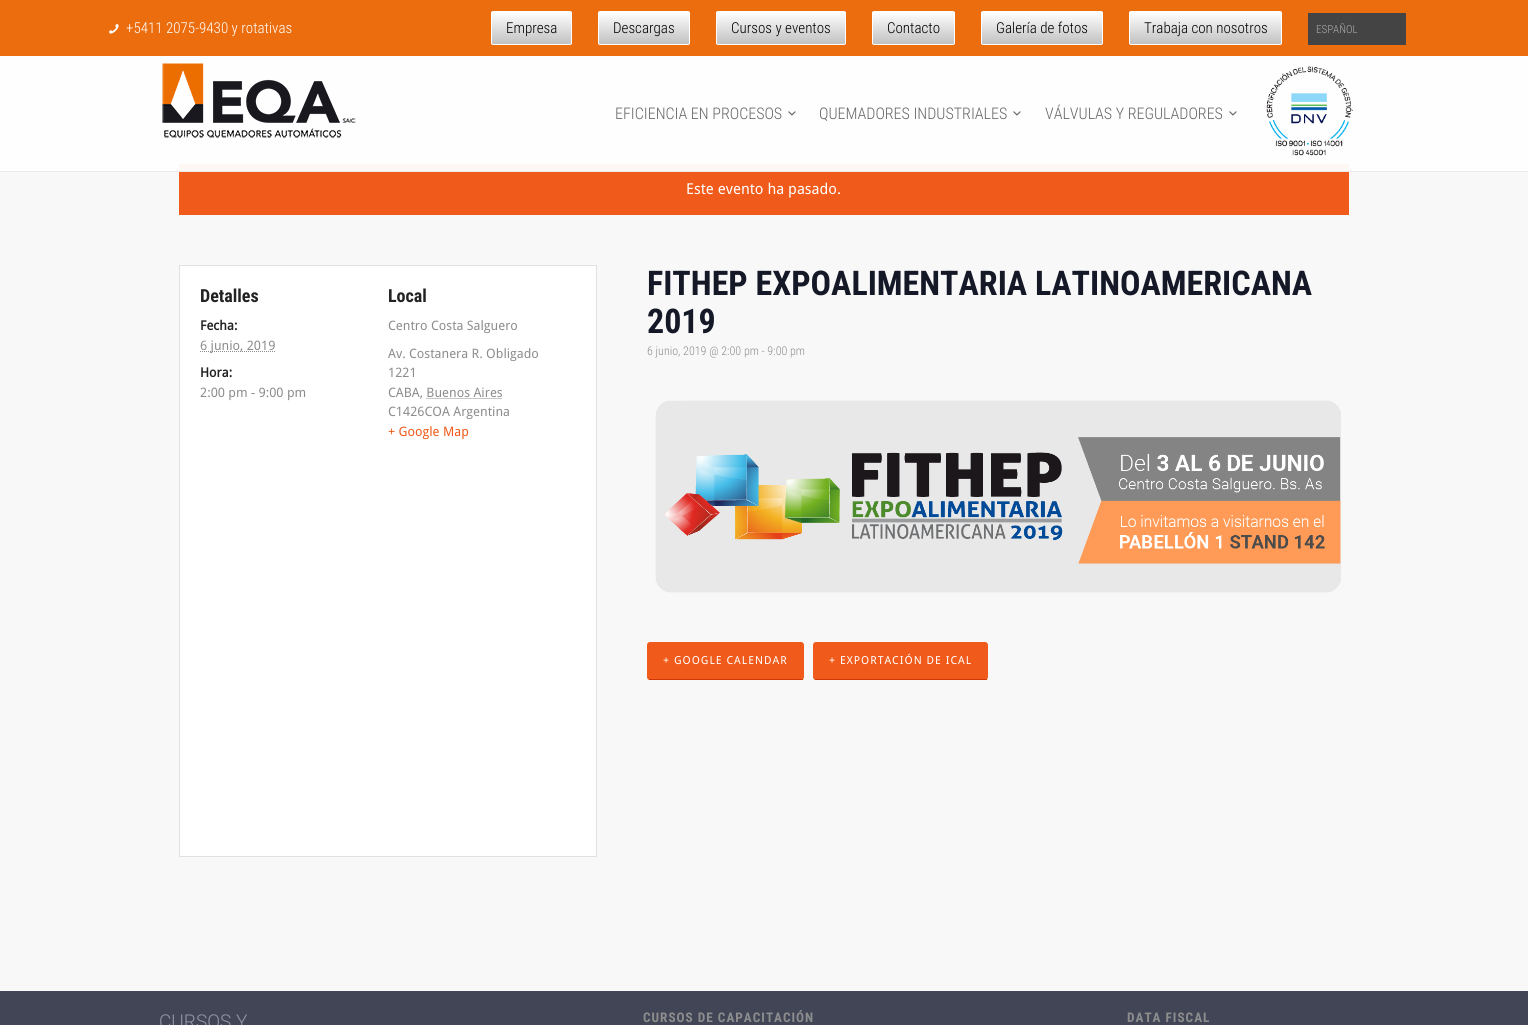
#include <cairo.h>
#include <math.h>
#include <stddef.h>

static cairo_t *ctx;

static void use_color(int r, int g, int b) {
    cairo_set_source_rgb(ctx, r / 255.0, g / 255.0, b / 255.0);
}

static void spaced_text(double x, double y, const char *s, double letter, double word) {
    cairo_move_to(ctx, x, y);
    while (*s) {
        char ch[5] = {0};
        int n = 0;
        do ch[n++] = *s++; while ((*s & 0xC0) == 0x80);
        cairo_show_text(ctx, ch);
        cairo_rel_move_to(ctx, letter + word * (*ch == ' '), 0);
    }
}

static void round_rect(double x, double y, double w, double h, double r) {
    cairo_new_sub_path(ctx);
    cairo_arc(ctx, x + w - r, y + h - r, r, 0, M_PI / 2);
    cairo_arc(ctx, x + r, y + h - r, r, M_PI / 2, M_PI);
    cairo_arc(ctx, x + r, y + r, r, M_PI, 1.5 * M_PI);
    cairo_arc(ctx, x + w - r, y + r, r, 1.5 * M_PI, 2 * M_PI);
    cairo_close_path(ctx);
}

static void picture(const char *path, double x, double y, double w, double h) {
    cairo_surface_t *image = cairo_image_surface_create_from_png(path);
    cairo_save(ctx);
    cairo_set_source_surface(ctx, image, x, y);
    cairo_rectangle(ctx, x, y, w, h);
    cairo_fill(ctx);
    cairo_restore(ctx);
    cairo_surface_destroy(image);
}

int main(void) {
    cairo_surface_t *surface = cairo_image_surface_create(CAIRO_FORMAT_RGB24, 1528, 1025);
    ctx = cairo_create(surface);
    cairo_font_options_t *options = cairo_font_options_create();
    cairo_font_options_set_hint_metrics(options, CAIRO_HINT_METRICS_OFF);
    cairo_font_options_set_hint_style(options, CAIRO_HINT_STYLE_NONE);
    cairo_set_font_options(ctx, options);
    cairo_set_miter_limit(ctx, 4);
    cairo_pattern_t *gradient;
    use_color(254, 254, 254);
    cairo_paint(ctx);
    use_color(235, 109, 13);
    cairo_rectangle(ctx, 0, 0, 1528, 56);
    cairo_fill(ctx);
    picture("img1.png", 109, 24, 10, 10);
    cairo_select_font_face(ctx, "Roboto Condensed Light", CAIRO_FONT_SLANT_NORMAL, CAIRO_FONT_WEIGHT_NORMAL);
    cairo_set_font_size(ctx, 15);
    use_color(255, 255, 255);
    cairo_move_to(ctx, 126, 33);
    cairo_show_text(ctx, "+5411 2075-9430 y rotativas");
    cairo_save(ctx);
    round_rect(491, 11, 81, 34, 2);
    cairo_clip(ctx);
    gradient = cairo_pattern_create_linear(532, 44, 532, 12);
    cairo_pattern_add_color_stop_rgba(gradient, 0, 0.757, 0.757, 0.757, 1);
    cairo_pattern_add_color_stop_rgba(gradient, 1, 1, 1, 1, 1);
    cairo_set_source(ctx, gradient);
    cairo_pattern_destroy(gradient);
    cairo_rectangle(ctx, 491, 12, 81, 32);
    cairo_fill(ctx);
    cairo_restore(ctx);
    round_rect(491.5, 11.5, 80, 33, 1.5);
    cairo_set_line_width(ctx, 1);
    cairo_stroke(ctx);
    use_color(0, 0, 0);
    cairo_move_to(ctx, 506, 33);
    cairo_show_text(ctx, "Empresa");
    cairo_save(ctx);
    round_rect(598, 11, 92, 34, 2);
    cairo_clip(ctx);
    gradient = cairo_pattern_create_linear(644, 44, 644, 12);
    cairo_pattern_add_color_stop_rgba(gradient, 0, 0.757, 0.757, 0.757, 1);
    cairo_pattern_add_color_stop_rgba(gradient, 1, 1, 1, 1, 1);
    cairo_set_source(ctx, gradient);
    cairo_pattern_destroy(gradient);
    cairo_rectangle(ctx, 598, 12, 92, 32);
    cairo_fill(ctx);
    cairo_restore(ctx);
    round_rect(598.5, 11.5, 91, 33, 1.5);
    use_color(255, 255, 255);
    cairo_stroke(ctx);
    use_color(0, 0, 0);
    cairo_move_to(ctx, 613, 33);
    cairo_show_text(ctx, "Descargas");
    cairo_save(ctx);
    round_rect(716, 11, 130, 34, 2);
    cairo_clip(ctx);
    gradient = cairo_pattern_create_linear(781, 44, 781, 12);
    cairo_pattern_add_color_stop_rgba(gradient, 0, 0.757, 0.757, 0.757, 1);
    cairo_pattern_add_color_stop_rgba(gradient, 1, 1, 1, 1, 1);
    cairo_set_source(ctx, gradient);
    cairo_pattern_destroy(gradient);
    cairo_rectangle(ctx, 716, 12, 130, 32);
    cairo_fill(ctx);
    cairo_restore(ctx);
    round_rect(716.5, 11.5, 129, 33, 1.5);
    use_color(255, 255, 255);
    cairo_stroke(ctx);
    use_color(0, 0, 0);
    cairo_move_to(ctx, 731, 33);
    cairo_show_text(ctx, "Cursos y eventos");
    cairo_save(ctx);
    round_rect(872, 11, 83, 34, 2);
    cairo_clip(ctx);
    gradient = cairo_pattern_create_linear(914, 44, 914, 12);
    cairo_pattern_add_color_stop_rgba(gradient, 0, 0.757, 0.757, 0.757, 1);
    cairo_pattern_add_color_stop_rgba(gradient, 1, 1, 1, 1, 1);
    cairo_set_source(ctx, gradient);
    cairo_pattern_destroy(gradient);
    cairo_rectangle(ctx, 872, 12, 83, 32);
    cairo_fill(ctx);
    cairo_restore(ctx);
    round_rect(872.5, 11.5, 82, 33, 1.5);
    use_color(255, 255, 255);
    cairo_stroke(ctx);
    use_color(0, 0, 0);
    cairo_move_to(ctx, 887, 33);
    cairo_show_text(ctx, "Contacto");
    cairo_save(ctx);
    round_rect(981, 11, 122, 34, 2);
    cairo_clip(ctx);
    gradient = cairo_pattern_create_linear(1042, 44, 1042, 12);
    cairo_pattern_add_color_stop_rgba(gradient, 0, 0.757, 0.757, 0.757, 1);
    cairo_pattern_add_color_stop_rgba(gradient, 1, 1, 1, 1, 1);
    cairo_set_source(ctx, gradient);
    cairo_pattern_destroy(gradient);
    cairo_rectangle(ctx, 981, 12, 122, 32);
    cairo_fill(ctx);
    cairo_restore(ctx);
    round_rect(981.5, 11.5, 121, 33, 1.5);
    use_color(255, 255, 255);
    cairo_stroke(ctx);
    use_color(0, 0, 0);
    cairo_move_to(ctx, 996, 33);
    cairo_show_text(ctx, "Galería de fotos");
    cairo_save(ctx);
    round_rect(1129, 11, 153, 34, 2);
    cairo_clip(ctx);
    gradient = cairo_pattern_create_linear(1206, 44, 1206, 12);
    cairo_pattern_add_color_stop_rgba(gradient, 0, 0.757, 0.757, 0.757, 1);
    cairo_pattern_add_color_stop_rgba(gradient, 1, 1, 1, 1, 1);
    cairo_set_source(ctx, gradient);
    cairo_pattern_destroy(gradient);
    cairo_rectangle(ctx, 1129, 12, 153, 32);
    cairo_fill(ctx);
    cairo_restore(ctx);
    round_rect(1129.5, 11.5, 152, 33, 1.5);
    use_color(255, 255, 255);
    cairo_stroke(ctx);
    use_color(0, 0, 0);
    cairo_move_to(ctx, 1144, 33);
    cairo_show_text(ctx, "Trabaja con nosotros");
    use_color(68, 68, 68);
    cairo_rectangle(ctx, 1308, 13, 98, 32);
    cairo_fill(ctx);
    cairo_set_font_size(ctx, 11);
    use_color(173, 173, 173);
    cairo_move_to(ctx, 1316, 33);
    cairo_show_text(ctx, "ESPAÑOL");
    use_color(234, 234, 234);
    cairo_rectangle(ctx, 0, 171, 1528, 1);
    cairo_fill(ctx);
    picture("img2.png", 162, 63, 194, 75);
    cairo_set_font_size(ctx, 16);
    use_color(102, 102, 102);
    cairo_move_to(ctx, 615, 119);
    cairo_show_text(ctx, "EFICIENCIA EN PROCESOS");
    picture("img3.png", 788, 111, 8, 5);
    cairo_move_to(ctx, 819, 119);
    cairo_show_text(ctx, "QUEMADORES INDUSTRIALES");
    picture("img3.png", 1013, 111, 8, 5);
    cairo_move_to(ctx, 1045, 119);
    cairo_show_text(ctx, "VÁLVULAS Y REGULADORES");
    picture("img3.png", 1229, 111, 8, 5);
    picture("img4.png", 1266, 66, 87, 90);
    use_color(248, 248, 248);
    cairo_rectangle(ctx, 0, 172, 1528, 819);
    cairo_fill(ctx);
    use_color(240, 90, 26);
    cairo_rectangle(ctx, 179, 172, 1170, 43);
    cairo_fill(ctx);
    use_color(254, 247, 244);
    cairo_rectangle(ctx, 179, 164, 1170, 7);
    cairo_fill(ctx);
    cairo_select_font_face(ctx, "Droid Sans", CAIRO_FONT_SLANT_NORMAL, CAIRO_FONT_WEIGHT_NORMAL);
    cairo_set_font_size(ctx, 15);
    use_color(255, 255, 255);
    cairo_move_to(ctx, 686, 194);
    cairo_show_text(ctx, "Este evento ha pasado.");
    cairo_rectangle(ctx, 179.5, 265.5, 417, 591);
    cairo_fill_preserve(ctx);
    use_color(225, 225, 225);
    cairo_stroke(ctx);
    cairo_select_font_face(ctx, "Roboto Condensed", CAIRO_FONT_SLANT_NORMAL, CAIRO_FONT_WEIGHT_BOLD);
    cairo_set_font_size(ctx, 18);
    use_color(34, 34, 34);
    cairo_move_to(ctx, 200, 302);
    cairo_show_text(ctx, "Detalles");
    cairo_select_font_face(ctx, "Droid Sans", CAIRO_FONT_SLANT_NORMAL, CAIRO_FONT_WEIGHT_BOLD);
    cairo_set_font_size(ctx, 13);
    cairo_move_to(ctx, 200, 330);
    cairo_show_text(ctx, "Fecha:");
    cairo_new_path(ctx);
    cairo_move_to(ctx, 200, 351.5);
    cairo_line_to(ctx, 275.5, 351.5);
    use_color(141, 141, 141);
    cairo_set_dash(ctx, (double[]){1, 1}, 2, 0);
    cairo_stroke(ctx);
    cairo_select_font_face(ctx, "Droid Sans", CAIRO_FONT_SLANT_NORMAL, CAIRO_FONT_WEIGHT_NORMAL);
    cairo_move_to(ctx, 200, 350);
    cairo_show_text(ctx, "6 junio, 2019");
    cairo_select_font_face(ctx, "Droid Sans", CAIRO_FONT_SLANT_NORMAL, CAIRO_FONT_WEIGHT_BOLD);
    use_color(34, 34, 34);
    cairo_move_to(ctx, 200, 377);
    cairo_show_text(ctx, "Hora:");
    cairo_select_font_face(ctx, "Droid Sans", CAIRO_FONT_SLANT_NORMAL, CAIRO_FONT_WEIGHT_NORMAL);
    use_color(141, 141, 141);
    cairo_move_to(ctx, 200, 397);
    cairo_show_text(ctx, "2:00 pm - 9:00 pm");
    cairo_select_font_face(ctx, "Roboto Condensed", CAIRO_FONT_SLANT_NORMAL, CAIRO_FONT_WEIGHT_BOLD);
    cairo_set_font_size(ctx, 18);
    use_color(34, 34, 34);
    cairo_move_to(ctx, 388, 302);
    cairo_show_text(ctx, "Local");
    cairo_select_font_face(ctx, "Droid Sans", CAIRO_FONT_SLANT_NORMAL, CAIRO_FONT_WEIGHT_NORMAL);
    cairo_set_font_size(ctx, 13);
    use_color(141, 141, 141);
    cairo_move_to(ctx, 388, 330);
    cairo_show_text(ctx, "Centro Costa Salguero");
    cairo_move_to(ctx, 388, 358);
    cairo_show_text(ctx, "Av. Costanera R. Obligado");
    cairo_move_to(ctx, 388, 377);
    cairo_show_text(ctx, "1221");
    cairo_move_to(ctx, 388, 397);
    cairo_show_text(ctx, "CABA, Buenos Aires");
    cairo_new_path(ctx);
    cairo_move_to(ctx, 426.5, 398.5);
    cairo_line_to(ctx, 502.5, 398.5);
    cairo_stroke(ctx);
    cairo_move_to(ctx, 388, 416);
    cairo_show_text(ctx, "C1426COA Argentina");
    use_color(240, 90, 26);
    cairo_move_to(ctx, 388, 436);
    cairo_show_text(ctx, "+ Google Map");
    cairo_select_font_face(ctx, "Roboto Condensed", CAIRO_FONT_SLANT_NORMAL, CAIRO_FONT_WEIGHT_BOLD);
    cairo_set_font_size(ctx, 34);
    use_color(20, 24, 39);
    cairo_move_to(ctx, 647, 295);
    cairo_show_text(ctx, "FITHEP EXPOALIMENTARIA LATINOAMERICANA");
    cairo_move_to(ctx, 647, 333);
    cairo_show_text(ctx, "2019");
    cairo_select_font_face(ctx, "Roboto Condensed Light", CAIRO_FONT_SLANT_NORMAL, CAIRO_FONT_WEIGHT_NORMAL);
    cairo_set_font_size(ctx, 12);
    use_color(141, 141, 141);
    cairo_move_to(ctx, 647, 355);
    cairo_show_text(ctx, "6 junio, 2019 @ 2:00 pm - 9:00 pm");
    picture("img5.png", 655, 400, 686, 193);
    use_color(240, 90, 26);
    round_rect(647, 642, 157, 38, 3);
    cairo_fill(ctx);
    use_color(208, 56, 8);
    cairo_rectangle(ctx, 649, 679, 154, 1);
    cairo_fill(ctx);
    cairo_select_font_face(ctx, "Droid Sans", CAIRO_FONT_SLANT_NORMAL, CAIRO_FONT_WEIGHT_NORMAL);
    cairo_set_font_size(ctx, 11);
    use_color(255, 255, 255);
    spaced_text(663, 664, "+ GOOGLE CALENDAR", 1, 0);
    use_color(240, 90, 26);
    round_rect(813, 642, 175, 38, 3);
    cairo_fill(ctx);
    use_color(208, 56, 8);
    cairo_rectangle(ctx, 815, 679, 172, 1);
    cairo_fill(ctx);
    use_color(255, 255, 255);
    spaced_text(829, 664, "+ EXPORTACIÓN DE ICAL", 1, 0);
    use_color(65, 69, 86);
    cairo_rectangle(ctx, 0, 991, 1528, 34);
    cairo_fill(ctx);
    cairo_select_font_face(ctx, "Roboto Light", CAIRO_FONT_SLANT_NORMAL, CAIRO_FONT_WEIGHT_NORMAL);
    cairo_set_font_size(ctx, 19);
    use_color(147, 149, 164);
    cairo_move_to(ctx, 159, 1028);
    cairo_show_text(ctx, "CURSOS Y");
    cairo_select_font_face(ctx, "Roboto Condensed", CAIRO_FONT_SLANT_NORMAL, CAIRO_FONT_WEIGHT_BOLD);
    cairo_set_font_size(ctx, 13.25);
    use_color(141, 141, 141);
    spaced_text(643, 1022, "CURSOS DE CAPACITACIÓN", 1, 0);
    spaced_text(1127, 1022, "DATA FISCAL", 1, 0);
    cairo_surface_write_to_png(surface, "result.png");
    cairo_font_options_destroy(options);
    cairo_destroy(ctx);
    cairo_surface_destroy(surface);
    return 0;
}
